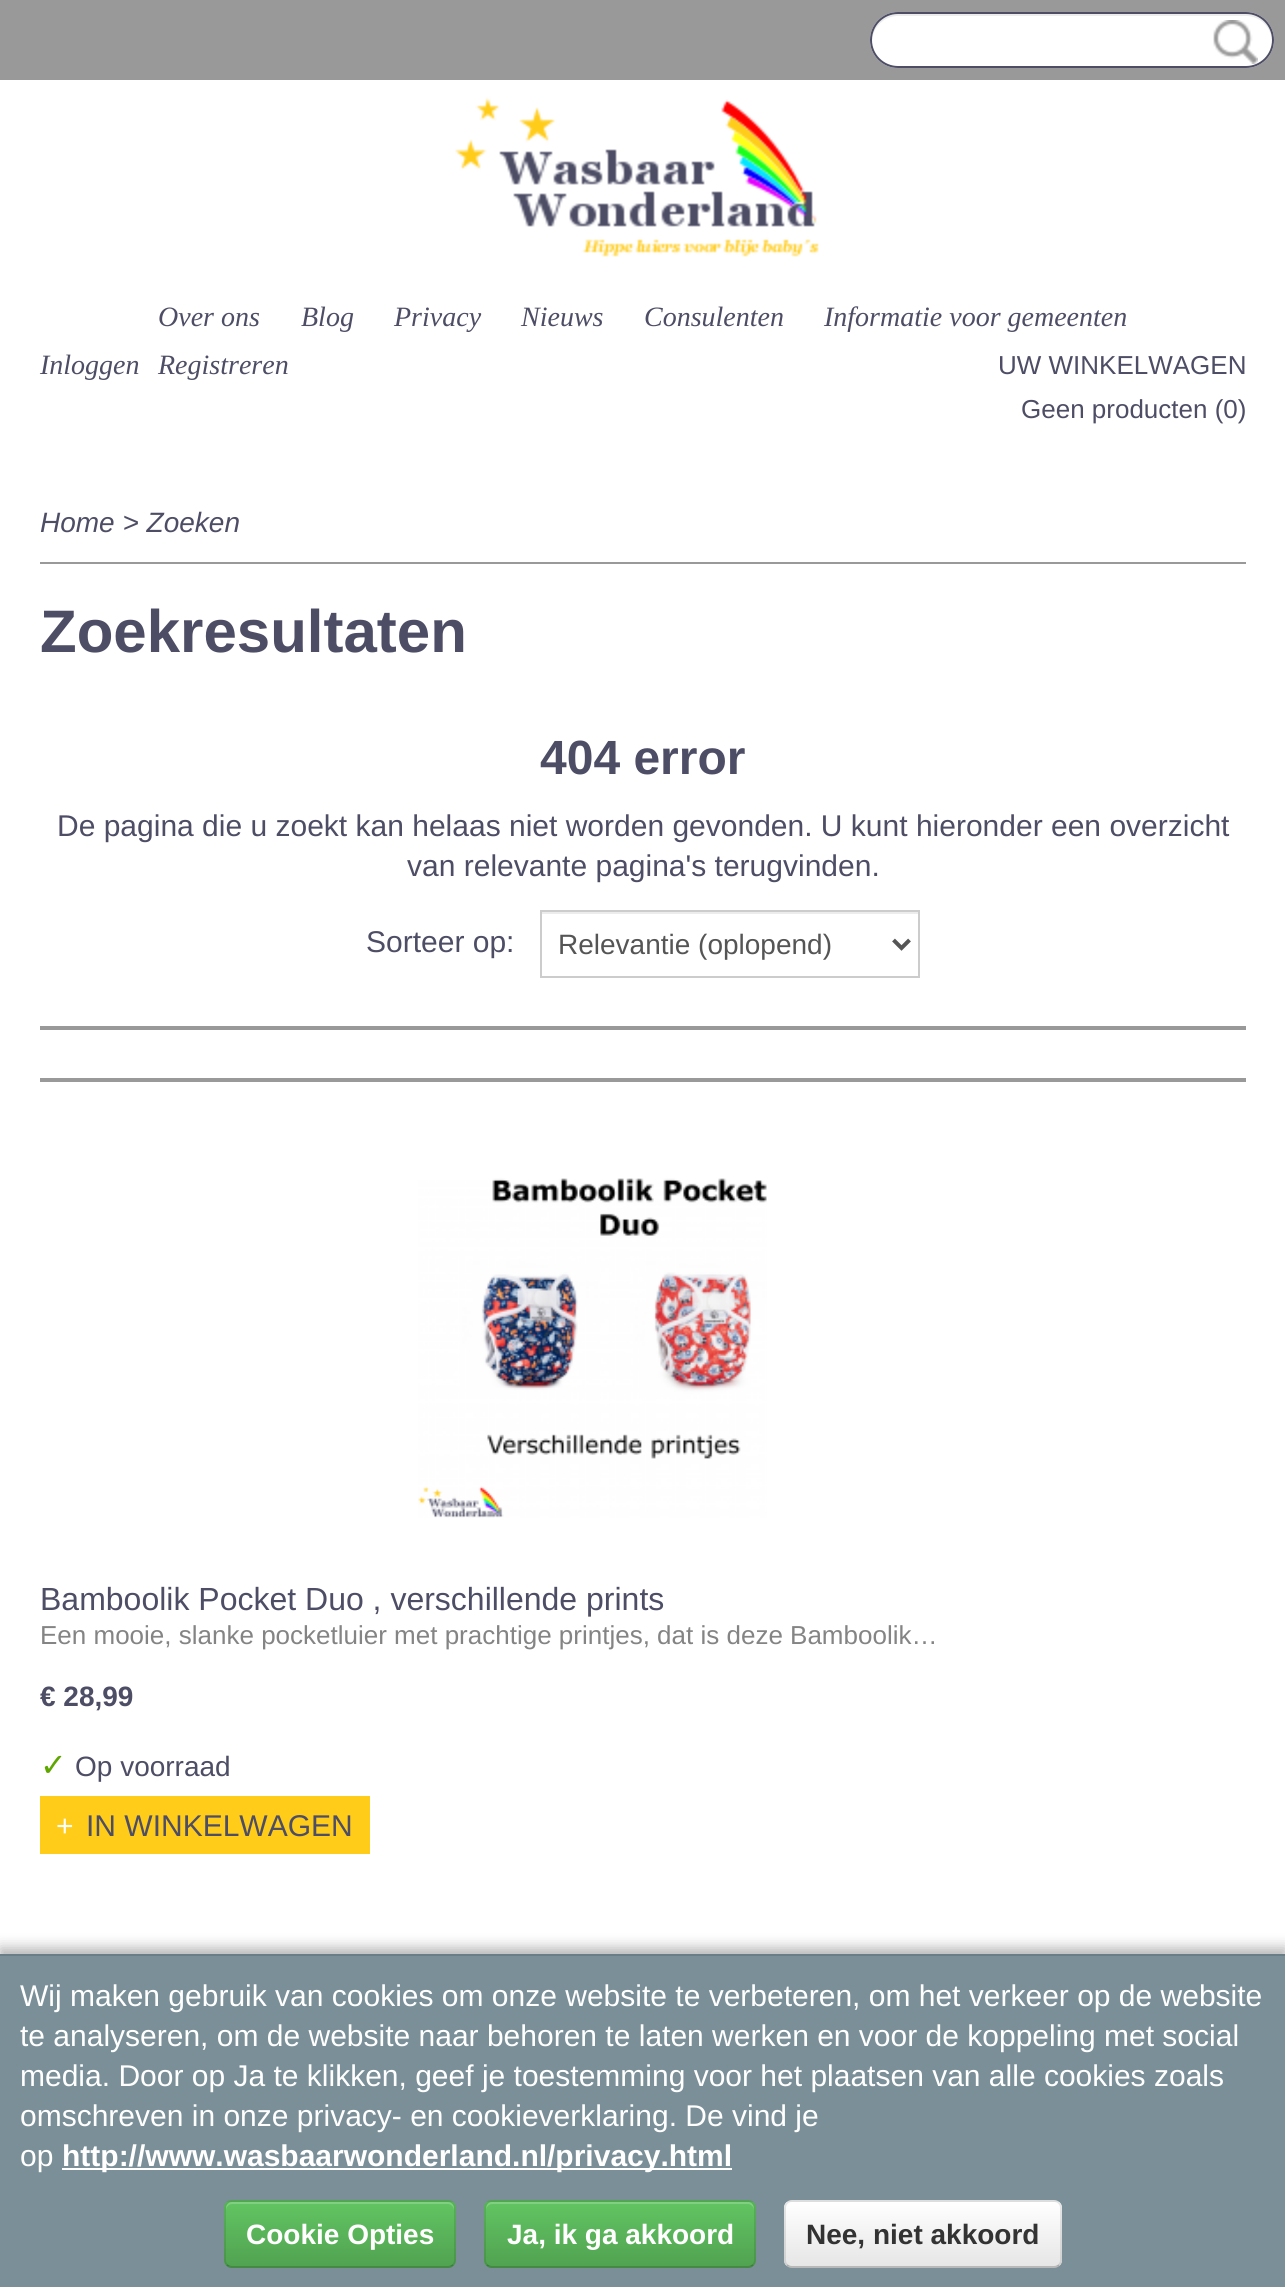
#include <cairo.h>
#include <math.h>
#include <stddef.h>

static cairo_t *ctx;

static void use_color(int r, int g, int b) {
    cairo_set_source_rgb(ctx, r / 255.0, g / 255.0, b / 255.0);
}

static void round_rect(double x, double y, double w, double h, double r) {
    cairo_new_sub_path(ctx);
    cairo_arc(ctx, x + w - r, y + h - r, r, 0, M_PI / 2);
    cairo_arc(ctx, x + r, y + h - r, r, M_PI / 2, M_PI);
    cairo_arc(ctx, x + r, y + r, r, M_PI, 1.5 * M_PI);
    cairo_arc(ctx, x + w - r, y + r, r, 1.5 * M_PI, 2 * M_PI);
    cairo_close_path(ctx);
}

static void shadow(double x, double y, double w, double h, double r, double blur, double alpha) {
    cairo_push_group_with_content(ctx, CAIRO_CONTENT_ALPHA);
    cairo_set_operator(ctx, CAIRO_OPERATOR_SOURCE);
    for (int i = 15; i >= -15 && fmin(w, h) + blur * i / 3 > 0; i -= 2) {
        double e = blur * i / 6;
        cairo_set_source_rgba(ctx, 0, 0, 0, alpha * erfc((i - 1) / 8.5) / 2);
        round_rect(x - e, y - e, w + 2 * e, h + 2 * e, fmax(0, fmin(r + e + blur * .6, fmin(w, h) / 2 + e)));
        cairo_fill(ctx);
    }
    cairo_pattern_t *soft = cairo_pop_group(ctx);
    cairo_mask(ctx, soft);
    cairo_pattern_destroy(soft);
}

static void picture(const char *path, double x, double y, double w, double h) {
    cairo_surface_t *image = cairo_image_surface_create_from_png(path);
    cairo_save(ctx);
    cairo_set_source_surface(ctx, image, x, y);
    cairo_rectangle(ctx, x, y, w, h);
    cairo_fill(ctx);
    cairo_restore(ctx);
    cairo_surface_destroy(image);
}

int main(void) {
    cairo_surface_t *surface = cairo_image_surface_create(CAIRO_FORMAT_RGB24, 1285, 2287);
    ctx = cairo_create(surface);
    cairo_font_options_t *options = cairo_font_options_create();
    cairo_font_options_set_hint_metrics(options, CAIRO_HINT_METRICS_OFF);
    cairo_font_options_set_hint_style(options, CAIRO_HINT_STYLE_NONE);
    cairo_set_font_options(ctx, options);
    cairo_set_miter_limit(ctx, 4);
    cairo_pattern_t *gradient;
    use_color(255, 255, 255);
    cairo_paint(ctx);
    use_color(153, 153, 153);
    cairo_rectangle(ctx, 0, 0, 1285, 80);
    cairo_fill(ctx);
    use_color(255, 255, 255);
    round_rect(870, 12, 404, 56, 28);
    cairo_fill(ctx);
    use_color(236, 236, 236);
    cairo_new_path(ctx);
    cairo_move_to(ctx, 898, 16);
    cairo_line_to(ctx, 1246, 16);
    cairo_curve_to(ctx, 1260, 16, 1271, 27, 1272, 41);
    cairo_curve_to(ctx, 1273, 26, 1261, 14, 1246, 14);
    cairo_line_to(ctx, 898, 14);
    cairo_curve_to(ctx, 883, 14, 871, 26, 872, 41);
    cairo_curve_to(ctx, 873, 27, 884, 16, 898, 16);
    cairo_close_path(ctx);
    cairo_fill(ctx);
    round_rect(871, 13, 402, 54, 27);
    use_color(77, 77, 102);
    cairo_stroke(ctx);
    picture("img1.png", 1213, 20, 45, 44);
    picture("img2.png", 455, 97, 364, 160);
    cairo_select_font_face(ctx, "Liberation Serif", CAIRO_FONT_SLANT_ITALIC, CAIRO_FONT_WEIGHT_NORMAL);
    cairo_set_font_size(ctx, 28);
    cairo_move_to(ctx, 158, 326);
    cairo_show_text(ctx, "Over ons");
    cairo_move_to(ctx, 301, 326);
    cairo_show_text(ctx, "Blog");
    cairo_move_to(ctx, 394, 326);
    cairo_show_text(ctx, "Privacy");
    cairo_move_to(ctx, 521, 326);
    cairo_show_text(ctx, "Nieuws");
    cairo_move_to(ctx, 644, 326);
    cairo_show_text(ctx, "Consulenten");
    cairo_move_to(ctx, 824, 326);
    cairo_show_text(ctx, "Informatie voor gemeenten");
    cairo_move_to(ctx, 40, 374);
    cairo_show_text(ctx, "Inloggen");
    cairo_move_to(ctx, 158, 374);
    cairo_show_text(ctx, "Registreren");
    cairo_select_font_face(ctx, "Liberation Sans", CAIRO_FONT_SLANT_NORMAL, CAIRO_FONT_WEIGHT_NORMAL);
    cairo_set_font_size(ctx, 26);
    cairo_move_to(ctx, 998, 374);
    cairo_show_text(ctx, "UW WINKELWAGEN");
    cairo_move_to(ctx, 1021, 418);
    cairo_show_text(ctx, "Geen producten (0)");
    use_color(153, 153, 153);
    cairo_rectangle(ctx, 40, 562, 1206, 2);
    cairo_fill(ctx);
    cairo_select_font_face(ctx, "Liberation Sans", CAIRO_FONT_SLANT_ITALIC, CAIRO_FONT_WEIGHT_NORMAL);
    cairo_set_font_size(ctx, 28);
    use_color(77, 77, 102);
    cairo_move_to(ctx, 40, 532);
    cairo_show_text(ctx, "Home > Zoeken");
    cairo_select_font_face(ctx, "Liberation Sans", CAIRO_FONT_SLANT_NORMAL, CAIRO_FONT_WEIGHT_BOLD);
    cairo_set_font_size(ctx, 60);
    cairo_move_to(ctx, 40, 652);
    cairo_show_text(ctx, "Zoekresultaten");
    cairo_set_font_size(ctx, 48);
    cairo_move_to(ctx, 540, 774);
    cairo_show_text(ctx, "404 error");
    cairo_select_font_face(ctx, "Liberation Sans", CAIRO_FONT_SLANT_NORMAL, CAIRO_FONT_WEIGHT_NORMAL);
    cairo_set_font_size(ctx, 30);
    cairo_move_to(ctx, 57, 836);
    cairo_show_text(ctx, "De pagina die u zoekt kan helaas niet worden gevonden. U kunt hieronder een overzicht");
    cairo_move_to(ctx, 407, 876);
    cairo_show_text(ctx, "van relevante pagina's terugvinden.");
    cairo_move_to(ctx, 366, 952);
    cairo_show_text(ctx, "Sorteer op:");
    use_color(236, 236, 236);
    cairo_rectangle(ctx, 542, 912, 376, 2);
    cairo_fill(ctx);
    cairo_rectangle(ctx, 541, 911, 378, 66);
    use_color(204, 204, 204);
    cairo_stroke(ctx);
    cairo_new_path(ctx);
    cairo_move_to(ctx, 893.5, 940);
    cairo_line_to(ctx, 901.5, 948);
    cairo_line_to(ctx, 909.5, 940);
    use_color(85, 85, 85);
    cairo_set_line_width(ctx, 4);
    cairo_stroke(ctx);
    cairo_set_font_size(ctx, 28);
    cairo_move_to(ctx, 558, 954);
    cairo_show_text(ctx, "Relevantie (oplopend)");
    use_color(153, 153, 153);
    cairo_rectangle(ctx, 40, 1026, 1206, 4);
    cairo_fill(ctx);
    cairo_rectangle(ctx, 40, 1078, 1206, 4);
    cairo_fill(ctx);
    picture("img3.png", 418, 1178, 349, 340);
    cairo_set_font_size(ctx, 32);
    use_color(77, 77, 102);
    cairo_move_to(ctx, 40, 1610);
    cairo_show_text(ctx, "Bamboolik Pocket Duo , verschillende prints");
    cairo_set_font_size(ctx, 26);
    use_color(132, 132, 132);
    cairo_move_to(ctx, 40, 1644);
    cairo_show_text(ctx, "Een mooie, slanke pocketluier met prachtige printjes, dat is deze Bamboolik…");
    cairo_select_font_face(ctx, "Liberation Sans", CAIRO_FONT_SLANT_NORMAL, CAIRO_FONT_WEIGHT_BOLD);
    cairo_set_font_size(ctx, 28);
    use_color(77, 77, 102);
    cairo_move_to(ctx, 40, 1706);
    cairo_show_text(ctx, "€ 28,99");
    cairo_select_font_face(ctx, "DejaVu Sans", CAIRO_FONT_SLANT_NORMAL, CAIRO_FONT_WEIGHT_NORMAL);
    cairo_set_font_size(ctx, 32);
    use_color(94, 166, 0);
    cairo_move_to(ctx, 40, 1776);
    cairo_show_text(ctx, "✓");
    cairo_select_font_face(ctx, "Liberation Sans", CAIRO_FONT_SLANT_NORMAL, CAIRO_FONT_WEIGHT_NORMAL);
    cairo_set_font_size(ctx, 28);
    use_color(77, 77, 102);
    cairo_move_to(ctx, 75, 1776);
    cairo_show_text(ctx, "Op voorraad");
    use_color(255, 204, 26);
    cairo_rectangle(ctx, 40, 1796, 330, 58);
    cairo_fill(ctx);
    cairo_set_font_size(ctx, 30);
    use_color(255, 255, 255);
    cairo_move_to(ctx, 56, 1836);
    cairo_show_text(ctx, "+");
    use_color(77, 77, 102);
    cairo_move_to(ctx, 86, 1836);
    cairo_show_text(ctx, "IN WINKELWAGEN");
    use_color(0, 0, 0);
    shadow(0, 1948, 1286, 334, 0, 7, 0.3);
    use_color(122, 143, 152);
    cairo_rectangle(ctx, 0, 1956, 1285, 331);
    cairo_fill(ctx);
    use_color(105, 126, 135);
    cairo_rectangle(ctx, 0, 1954, 1285, 2);
    cairo_fill(ctx);
    use_color(255, 255, 255);
    cairo_move_to(ctx, 20, 2006);
    cairo_show_text(ctx, "Wij maken gebruik van cookies om onze website te verbeteren, om het verkeer op de website");
    cairo_move_to(ctx, 20, 2046);
    cairo_show_text(ctx, "te analyseren, om de website naar behoren te laten werken en voor de koppeling met social");
    cairo_move_to(ctx, 20, 2086);
    cairo_show_text(ctx, "media. Door op Ja te klikken, geef je toestemming voor het plaatsen van alle cookies zoals");
    cairo_move_to(ctx, 20, 2126);
    cairo_show_text(ctx, "omschreven in onze privacy- en cookieverklaring. De vind je");
    cairo_move_to(ctx, 20, 2166);
    cairo_show_text(ctx, "op");
    cairo_rectangle(ctx, 62, 2168, 670, 2);
    cairo_fill(ctx);
    cairo_select_font_face(ctx, "Liberation Sans", CAIRO_FONT_SLANT_NORMAL, CAIRO_FONT_WEIGHT_BOLD);
    cairo_move_to(ctx, 62, 2166);
    cairo_show_text(ctx, "http://www.wasbaarwonderland.nl/privacy.html");
    use_color(91, 183, 91);
    round_rect(224, 2200, 232, 68, 8);
    cairo_fill(ctx);
    cairo_save(ctx);
    round_rect(224, 2200, 232, 68, 8);
    cairo_clip(ctx);
    gradient = cairo_pattern_create_linear(340, 2202, 340, 2266);
    cairo_pattern_add_color_stop_rgba(gradient, 0, 0.384, 0.769, 0.384, 1);
    cairo_pattern_add_color_stop_rgba(gradient, 1, 0.318, 0.639, 0.318, 1);
    cairo_set_source(ctx, gradient);
    cairo_pattern_destroy(gradient);
    cairo_rectangle(ctx, 224, 2202, 232, 64);
    cairo_fill(ctx);
    cairo_restore(ctx);
    cairo_set_source_rgba(ctx, 1, 1, 1, 0.2);
    cairo_new_path(ctx);
    cairo_move_to(ctx, 232, 2204);
    cairo_line_to(ctx, 448, 2204);
    cairo_curve_to(ctx, 451, 2204, 454, 2207, 454, 2210);
    cairo_line_to(ctx, 454, 2208);
    cairo_curve_to(ctx, 454, 2205, 451, 2202, 448, 2202);
    cairo_line_to(ctx, 232, 2202);
    cairo_curve_to(ctx, 229, 2202, 226, 2205, 226, 2208);
    cairo_line_to(ctx, 226, 2210);
    cairo_curve_to(ctx, 226, 2207, 229, 2204, 232, 2204);
    cairo_close_path(ctx);
    cairo_fill(ctx);
    cairo_new_path(ctx);
    cairo_move_to(ctx, 453, 2265);
    cairo_curve_to(ctx, 451.5, 2266.5, 450, 2267, 448, 2267);
    cairo_line_to(ctx, 232, 2267);
    cairo_curve_to(ctx, 230, 2267, 228.5, 2266.5, 227, 2265);
    cairo_set_source_rgba(ctx, 0, 0, 0, 0.25);
    cairo_set_line_width(ctx, 2);
    cairo_stroke(ctx);
    cairo_new_path(ctx);
    cairo_move_to(ctx, 227, 2265);
    cairo_curve_to(ctx, 225.5, 2263.5, 225, 2262, 225, 2260);
    cairo_line_to(ctx, 225, 2208);
    cairo_curve_to(ctx, 225, 2206, 225.5, 2204.5, 227, 2203);
    cairo_curve_to(ctx, 228.5, 2201.5, 230, 2201, 232, 2201);
    cairo_line_to(ctx, 448, 2201);
    cairo_curve_to(ctx, 450, 2201, 451.5, 2201.5, 453, 2203);
    cairo_curve_to(ctx, 454.5, 2204.5, 455, 2206, 455, 2208);
    cairo_line_to(ctx, 455, 2260);
    cairo_curve_to(ctx, 455, 2262, 454.5, 2263.5, 453, 2265);
    cairo_set_source_rgba(ctx, 0, 0, 0, 0.1);
    cairo_stroke(ctx);
    cairo_set_font_size(ctx, 28);
    use_color(255, 255, 255);
    cairo_move_to(ctx, 246, 2244);
    cairo_show_text(ctx, "Cookie Opties");
    use_color(91, 183, 91);
    round_rect(484, 2200, 272, 68, 8);
    cairo_fill(ctx);
    cairo_save(ctx);
    round_rect(484, 2200, 272, 68, 8);
    cairo_clip(ctx);
    gradient = cairo_pattern_create_linear(620, 2202, 620, 2266);
    cairo_pattern_add_color_stop_rgba(gradient, 0, 0.384, 0.769, 0.384, 1);
    cairo_pattern_add_color_stop_rgba(gradient, 1, 0.318, 0.639, 0.318, 1);
    cairo_set_source(ctx, gradient);
    cairo_pattern_destroy(gradient);
    cairo_rectangle(ctx, 484, 2202, 272, 64);
    cairo_fill(ctx);
    cairo_restore(ctx);
    use_color(129, 207, 129);
    cairo_new_path(ctx);
    cairo_move_to(ctx, 492, 2204);
    cairo_line_to(ctx, 748, 2204);
    cairo_curve_to(ctx, 751, 2204, 754, 2207, 754, 2210);
    cairo_curve_to(ctx, 754, 2207, 753, 2203, 749, 2202);
    cairo_line_to(ctx, 491, 2202);
    cairo_curve_to(ctx, 487, 2203, 486, 2207, 486, 2210);
    cairo_curve_to(ctx, 486, 2207, 489, 2204, 492, 2204);
    cairo_close_path(ctx);
    cairo_fill(ctx);
    cairo_new_path(ctx);
    cairo_move_to(ctx, 753, 2265);
    cairo_curve_to(ctx, 751.5, 2266.5, 750, 2267, 748, 2267);
    cairo_line_to(ctx, 492, 2267);
    cairo_curve_to(ctx, 490, 2267, 488.5, 2266.5, 487, 2265);
    cairo_set_source_rgba(ctx, 0, 0, 0, 0.25);
    cairo_stroke(ctx);
    cairo_new_path(ctx);
    cairo_move_to(ctx, 487, 2265);
    cairo_curve_to(ctx, 485.5, 2263.5, 485, 2262, 485, 2260);
    cairo_line_to(ctx, 485, 2208);
    cairo_curve_to(ctx, 485, 2206, 485.5, 2204.5, 487, 2203);
    cairo_curve_to(ctx, 488.5, 2201.5, 490, 2201, 492, 2201);
    cairo_line_to(ctx, 748, 2201);
    cairo_curve_to(ctx, 750, 2201, 751.5, 2201.5, 753, 2203);
    cairo_curve_to(ctx, 754.5, 2204.5, 755, 2206, 755, 2208);
    cairo_line_to(ctx, 755, 2260);
    cairo_curve_to(ctx, 755, 2262, 754.5, 2263.5, 753, 2265);
    cairo_set_source_rgba(ctx, 0, 0, 0, 0.1);
    cairo_stroke(ctx);
    use_color(255, 255, 255);
    cairo_move_to(ctx, 507, 2244);
    cairo_show_text(ctx, "Ja, ik ga akkoord");
    use_color(245, 245, 245);
    round_rect(784, 2200, 278, 68, 8);
    cairo_fill(ctx);
    cairo_save(ctx);
    round_rect(784, 2200, 278, 68, 8);
    cairo_clip(ctx);
    gradient = cairo_pattern_create_linear(923, 2202, 923, 2266);
    cairo_pattern_add_color_stop_rgba(gradient, 0, 1, 1, 1, 1);
    cairo_pattern_add_color_stop_rgba(gradient, 1, 0.902, 0.902, 0.902, 1);
    cairo_set_source(ctx, gradient);
    cairo_pattern_destroy(gradient);
    cairo_rectangle(ctx, 784, 2202, 278, 64);
    cairo_fill(ctx);
    cairo_restore(ctx);
    cairo_new_path(ctx);
    cairo_move_to(ctx, 1059, 2265);
    cairo_curve_to(ctx, 1057.5, 2266.5, 1056, 2267, 1054, 2267);
    cairo_line_to(ctx, 792, 2267);
    cairo_curve_to(ctx, 790, 2267, 788.5, 2266.5, 787, 2265);
    cairo_set_source_rgba(ctx, 0, 0, 0, 0.25);
    cairo_stroke(ctx);
    cairo_new_path(ctx);
    cairo_move_to(ctx, 787, 2265);
    cairo_curve_to(ctx, 785.5, 2263.5, 785, 2262, 785, 2260);
    cairo_line_to(ctx, 785, 2208);
    cairo_curve_to(ctx, 785, 2206, 785.5, 2204.5, 787, 2203);
    cairo_curve_to(ctx, 788.5, 2201.5, 790, 2201, 792, 2201);
    cairo_line_to(ctx, 1054, 2201);
    cairo_curve_to(ctx, 1056, 2201, 1057.5, 2201.5, 1059, 2203);
    cairo_curve_to(ctx, 1060.5, 2204.5, 1061, 2206, 1061, 2208);
    cairo_line_to(ctx, 1061, 2260);
    cairo_curve_to(ctx, 1061, 2262, 1060.5, 2263.5, 1059, 2265);
    cairo_set_source_rgba(ctx, 0, 0, 0, 0.1);
    cairo_stroke(ctx);
    use_color(51, 51, 51);
    cairo_move_to(ctx, 806, 2244);
    cairo_show_text(ctx, "Nee, niet akkoord");
    cairo_surface_write_to_png(surface, "result.png");
    cairo_font_options_destroy(options);
    cairo_destroy(ctx);
    cairo_surface_destroy(surface);
    return 0;
}
